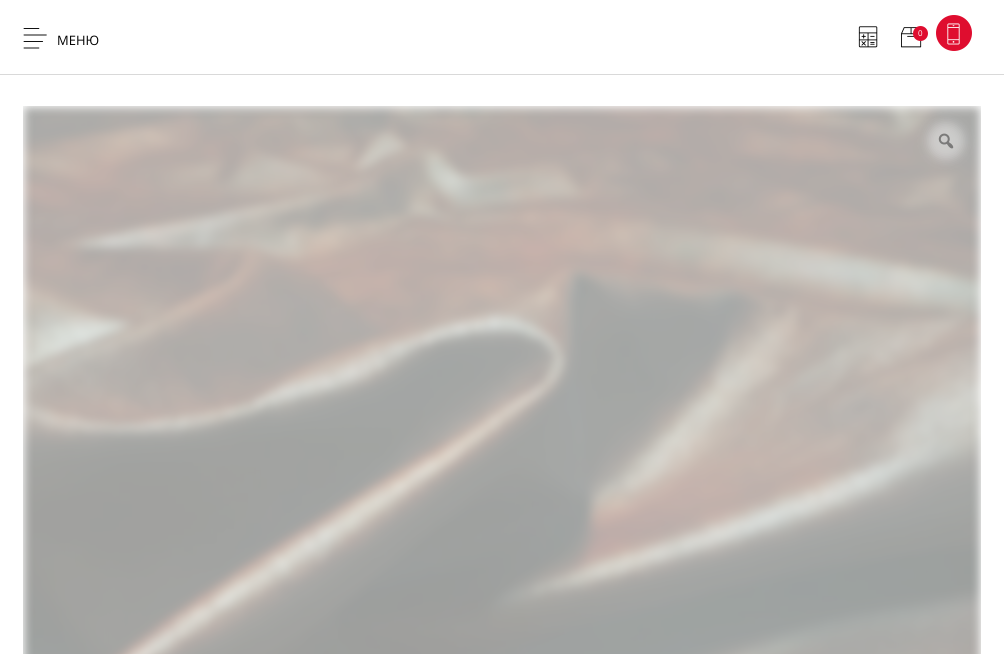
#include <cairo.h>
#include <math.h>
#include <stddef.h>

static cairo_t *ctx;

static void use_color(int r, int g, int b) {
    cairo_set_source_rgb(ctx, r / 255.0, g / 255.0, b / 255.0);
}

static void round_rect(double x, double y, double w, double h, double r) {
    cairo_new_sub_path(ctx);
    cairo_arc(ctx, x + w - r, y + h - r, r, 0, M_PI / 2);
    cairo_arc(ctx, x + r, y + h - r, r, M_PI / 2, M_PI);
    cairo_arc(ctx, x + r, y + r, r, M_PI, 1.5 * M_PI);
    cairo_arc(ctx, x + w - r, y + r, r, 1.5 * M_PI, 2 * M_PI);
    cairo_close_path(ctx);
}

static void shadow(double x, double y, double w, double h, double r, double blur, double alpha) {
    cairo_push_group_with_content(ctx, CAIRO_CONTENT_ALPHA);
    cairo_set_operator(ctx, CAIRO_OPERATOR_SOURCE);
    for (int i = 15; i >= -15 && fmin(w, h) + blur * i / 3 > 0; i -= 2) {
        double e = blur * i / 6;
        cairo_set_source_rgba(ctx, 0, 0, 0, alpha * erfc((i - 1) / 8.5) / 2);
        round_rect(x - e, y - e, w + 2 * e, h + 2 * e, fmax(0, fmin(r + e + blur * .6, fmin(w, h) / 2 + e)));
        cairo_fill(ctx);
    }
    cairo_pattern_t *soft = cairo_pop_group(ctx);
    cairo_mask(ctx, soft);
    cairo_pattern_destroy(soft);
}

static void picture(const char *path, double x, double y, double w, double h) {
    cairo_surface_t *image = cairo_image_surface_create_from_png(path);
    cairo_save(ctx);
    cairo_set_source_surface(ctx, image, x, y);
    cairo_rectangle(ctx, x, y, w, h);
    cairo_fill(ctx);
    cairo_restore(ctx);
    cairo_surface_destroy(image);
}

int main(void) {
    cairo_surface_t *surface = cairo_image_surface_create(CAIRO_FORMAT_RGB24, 1004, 654);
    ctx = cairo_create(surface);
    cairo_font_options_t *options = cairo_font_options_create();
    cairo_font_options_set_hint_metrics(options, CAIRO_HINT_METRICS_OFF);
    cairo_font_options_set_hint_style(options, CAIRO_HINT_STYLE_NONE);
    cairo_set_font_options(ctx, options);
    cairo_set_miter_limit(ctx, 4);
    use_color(255, 255, 255);
    cairo_paint(ctx);
    use_color(217, 217, 217);
    cairo_rectangle(ctx, 0, 74, 1004, 1);
    cairo_fill(ctx);
    picture("img1.png", 858, 26, 20, 22);
    picture("img2.png", 901, 27, 21, 21);
    use_color(223, 13, 47);
    cairo_arc(ctx, 920.5, 33.5, 7.5, 0, 2 * M_PI);
    cairo_fill(ctx);
    cairo_select_font_face(ctx, "Open Sans", CAIRO_FONT_SLANT_NORMAL, CAIRO_FONT_WEIGHT_NORMAL);
    cairo_set_font_size(ctx, 8);
    use_color(255, 255, 255);
    cairo_move_to(ctx, 918, 36);
    cairo_show_text(ctx, "0");
    use_color(223, 13, 47);
    cairo_new_path(ctx);
    cairo_arc(ctx, 954, 33, 18, 0, 2 * M_PI);
    cairo_fill(ctx);
    picture("img3.png", 947, 23, 13, 22);
    picture("img4.png", 23, 28, 24, 21);
    cairo_set_font_size(ctx, 13);
    use_color(0, 0, 0);
    cairo_move_to(ctx, 57, 45);
    cairo_show_text(ctx, "МЕНЮ");
    picture("img5.png", 23, 106, 958, 548);
    use_color(255, 255, 255);
    shadow(928, 123, 36, 36, 18, 5, 0.4);
    picture("img6.png", 938, 133, 16, 16);
    cairo_surface_write_to_png(surface, "result.png");
    cairo_font_options_destroy(options);
    cairo_destroy(ctx);
    cairo_surface_destroy(surface);
    return 0;
}
